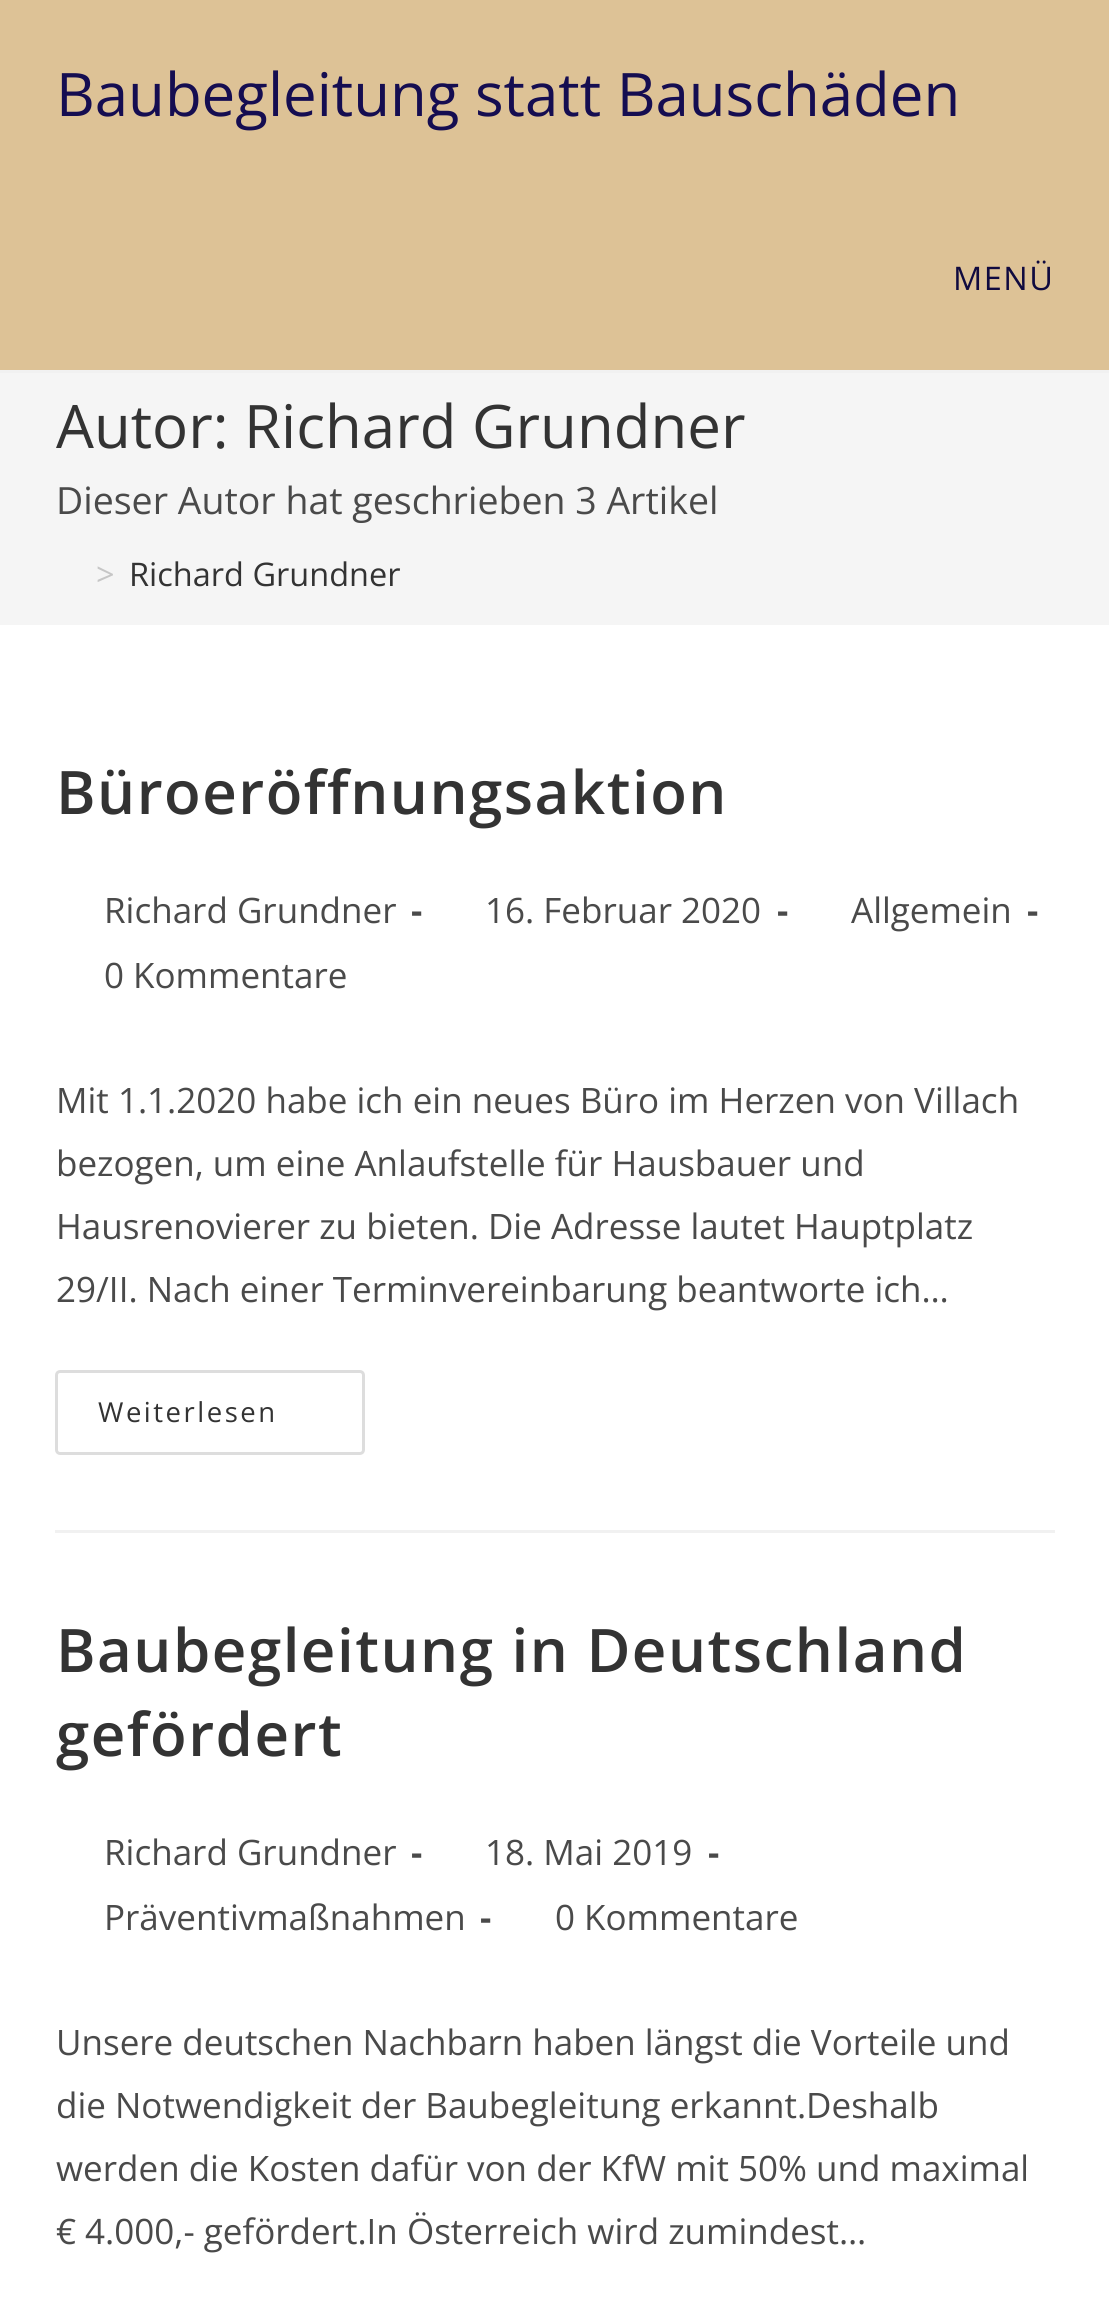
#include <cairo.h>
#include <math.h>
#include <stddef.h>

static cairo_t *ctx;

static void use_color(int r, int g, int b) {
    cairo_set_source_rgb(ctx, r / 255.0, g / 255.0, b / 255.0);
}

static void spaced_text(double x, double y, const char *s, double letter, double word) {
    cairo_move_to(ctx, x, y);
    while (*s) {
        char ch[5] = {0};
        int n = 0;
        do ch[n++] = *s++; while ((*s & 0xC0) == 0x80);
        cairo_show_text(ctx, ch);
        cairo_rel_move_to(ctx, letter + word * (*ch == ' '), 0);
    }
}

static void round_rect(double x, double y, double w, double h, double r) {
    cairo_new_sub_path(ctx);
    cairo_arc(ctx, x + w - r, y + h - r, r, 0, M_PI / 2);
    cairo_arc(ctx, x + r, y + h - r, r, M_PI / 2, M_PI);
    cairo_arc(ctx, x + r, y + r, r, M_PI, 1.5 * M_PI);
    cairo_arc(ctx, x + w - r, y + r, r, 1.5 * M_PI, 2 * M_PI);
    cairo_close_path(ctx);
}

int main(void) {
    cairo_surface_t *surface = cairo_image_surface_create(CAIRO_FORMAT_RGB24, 1109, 2307);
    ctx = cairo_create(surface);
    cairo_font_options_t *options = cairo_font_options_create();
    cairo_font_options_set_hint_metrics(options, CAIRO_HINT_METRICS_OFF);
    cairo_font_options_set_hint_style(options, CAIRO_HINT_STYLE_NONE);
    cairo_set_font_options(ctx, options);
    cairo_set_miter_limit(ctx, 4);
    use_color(255, 255, 255);
    cairo_paint(ctx);
    use_color(221, 194, 150);
    cairo_rectangle(ctx, 0, 0, 1109, 370);
    cairo_fill(ctx);
    use_color(241, 241, 241);
    cairo_rectangle(ctx, 0, 370, 1109, 3);
    cairo_fill(ctx);
    cairo_select_font_face(ctx, "Open Sans", CAIRO_FONT_SLANT_NORMAL, CAIRO_FONT_WEIGHT_NORMAL);
    cairo_set_font_size(ctx, 60);
    use_color(21, 13, 81);
    cairo_move_to(ctx, 56, 116);
    cairo_show_text(ctx, "Baubegleitung statt Bauschäden");
    cairo_set_font_size(ctx, 32.5);
    use_color(16, 10, 63);
    spaced_text(953, 290, "MENÜ", 1.5, 0);
    use_color(245, 245, 245);
    cairo_rectangle(ctx, 0, 373, 1109, 252);
    cairo_fill(ctx);
    cairo_set_font_size(ctx, 60);
    use_color(51, 51, 51);
    cairo_move_to(ctx, 56, 448);
    cairo_show_text(ctx, "Autor: Richard Grundner");
    cairo_set_font_size(ctx, 37.5);
    use_color(74, 74, 74);
    cairo_move_to(ctx, 56, 514);
    cairo_show_text(ctx, "Dieser Autor hat geschrieben 3 Artikel");
    cairo_set_font_size(ctx, 32.5);
    use_color(198, 198, 198);
    cairo_move_to(ctx, 96, 586);
    cairo_show_text(ctx, ">");
    use_color(51, 51, 51);
    cairo_move_to(ctx, 129, 586);
    cairo_show_text(ctx, "Richard Grundner");
    use_color(241, 241, 241);
    cairo_rectangle(ctx, 55, 1530, 1000, 3);
    cairo_fill(ctx);
    cairo_select_font_face(ctx, "Open Sans SemiBold", CAIRO_FONT_SLANT_NORMAL, CAIRO_FONT_WEIGHT_NORMAL);
    cairo_set_font_size(ctx, 60);
    use_color(51, 51, 51);
    spaced_text(56, 814, "Büroeröffnungsaktion", 1.5, 0);
    cairo_select_font_face(ctx, "Open Sans", CAIRO_FONT_SLANT_NORMAL, CAIRO_FONT_WEIGHT_NORMAL);
    cairo_set_font_size(ctx, 35);
    use_color(74, 74, 74);
    cairo_move_to(ctx, 104, 923);
    cairo_show_text(ctx, "Richard Grundner");
    cairo_select_font_face(ctx, "Open Sans", CAIRO_FONT_SLANT_NORMAL, CAIRO_FONT_WEIGHT_BOLD);
    cairo_move_to(ctx, 411, 923);
    cairo_show_text(ctx, "-");
    cairo_select_font_face(ctx, "Open Sans", CAIRO_FONT_SLANT_NORMAL, CAIRO_FONT_WEIGHT_NORMAL);
    cairo_move_to(ctx, 485, 923);
    cairo_show_text(ctx, "16. Februar 2020");
    cairo_select_font_face(ctx, "Open Sans", CAIRO_FONT_SLANT_NORMAL, CAIRO_FONT_WEIGHT_BOLD);
    cairo_move_to(ctx, 777, 923);
    cairo_show_text(ctx, "-");
    cairo_select_font_face(ctx, "Open Sans", CAIRO_FONT_SLANT_NORMAL, CAIRO_FONT_WEIGHT_NORMAL);
    cairo_move_to(ctx, 851, 923);
    cairo_show_text(ctx, "Allgemein");
    cairo_select_font_face(ctx, "Open Sans", CAIRO_FONT_SLANT_NORMAL, CAIRO_FONT_WEIGHT_BOLD);
    cairo_move_to(ctx, 1027, 923);
    cairo_show_text(ctx, "-");
    cairo_select_font_face(ctx, "Open Sans", CAIRO_FONT_SLANT_NORMAL, CAIRO_FONT_WEIGHT_NORMAL);
    cairo_move_to(ctx, 104, 988);
    cairo_show_text(ctx, "0 Kommentare");
    cairo_move_to(ctx, 56, 1113);
    cairo_show_text(ctx, "Mit 1.1.2020 habe ich ein neues Büro im Herzen von Villach");
    cairo_move_to(ctx, 56, 1176);
    cairo_show_text(ctx, "bezogen, um eine Anlaufstelle für Hausbauer und");
    cairo_move_to(ctx, 56, 1239);
    cairo_show_text(ctx, "Hausrenovierer zu bieten. Die Adresse lautet Hauptplatz");
    cairo_move_to(ctx, 56, 1302);
    cairo_show_text(ctx, "29/II. Nach einer Terminvereinbarung beantworte ich…");
    round_rect(56.5, 1371.5, 307, 82, 3.5);
    use_color(221, 221, 221);
    cairo_set_line_width(ctx, 3);
    cairo_stroke(ctx);
    cairo_set_font_size(ctx, 27.5);
    use_color(51, 51, 51);
    spaced_text(98, 1422, "Weiterlesen", 2.5, 0);
    cairo_select_font_face(ctx, "Open Sans SemiBold", CAIRO_FONT_SLANT_NORMAL, CAIRO_FONT_WEIGHT_NORMAL);
    cairo_set_font_size(ctx, 60);
    spaced_text(56, 1672, "Baubegleitung in Deutschland", 1.5, 0);
    spaced_text(56, 1756, "gefördert", 1.5, 0);
    cairo_select_font_face(ctx, "Open Sans", CAIRO_FONT_SLANT_NORMAL, CAIRO_FONT_WEIGHT_NORMAL);
    cairo_set_font_size(ctx, 35);
    use_color(74, 74, 74);
    cairo_move_to(ctx, 104, 1865);
    cairo_show_text(ctx, "Richard Grundner");
    cairo_select_font_face(ctx, "Open Sans", CAIRO_FONT_SLANT_NORMAL, CAIRO_FONT_WEIGHT_BOLD);
    cairo_move_to(ctx, 411, 1865);
    cairo_show_text(ctx, "-");
    cairo_select_font_face(ctx, "Open Sans", CAIRO_FONT_SLANT_NORMAL, CAIRO_FONT_WEIGHT_NORMAL);
    cairo_move_to(ctx, 485, 1865);
    cairo_show_text(ctx, "18. Mai 2019");
    cairo_select_font_face(ctx, "Open Sans", CAIRO_FONT_SLANT_NORMAL, CAIRO_FONT_WEIGHT_BOLD);
    cairo_move_to(ctx, 708, 1865);
    cairo_show_text(ctx, "-");
    cairo_select_font_face(ctx, "Open Sans", CAIRO_FONT_SLANT_NORMAL, CAIRO_FONT_WEIGHT_NORMAL);
    cairo_move_to(ctx, 104, 1930);
    cairo_show_text(ctx, "Präventivmaßnahmen");
    cairo_select_font_face(ctx, "Open Sans", CAIRO_FONT_SLANT_NORMAL, CAIRO_FONT_WEIGHT_BOLD);
    cairo_move_to(ctx, 480, 1930);
    cairo_show_text(ctx, "-");
    cairo_select_font_face(ctx, "Open Sans", CAIRO_FONT_SLANT_NORMAL, CAIRO_FONT_WEIGHT_NORMAL);
    cairo_move_to(ctx, 555, 1930);
    cairo_show_text(ctx, "0 Kommentare");
    cairo_move_to(ctx, 56, 2055);
    cairo_show_text(ctx, "Unsere deutschen Nachbarn haben längst die Vorteile und");
    cairo_move_to(ctx, 56, 2118);
    cairo_show_text(ctx, "die Notwendigkeit der Baubegleitung erkannt.Deshalb");
    cairo_move_to(ctx, 56, 2181);
    cairo_show_text(ctx, "werden die Kosten dafür von der KfW mit 50% und maximal");
    cairo_move_to(ctx, 56, 2244);
    cairo_show_text(ctx, "€ 4.000,- gefördert.In Österreich wird zumindest…");
    cairo_surface_write_to_png(surface, "result.png");
    cairo_font_options_destroy(options);
    cairo_destroy(ctx);
    cairo_surface_destroy(surface);
    return 0;
}
